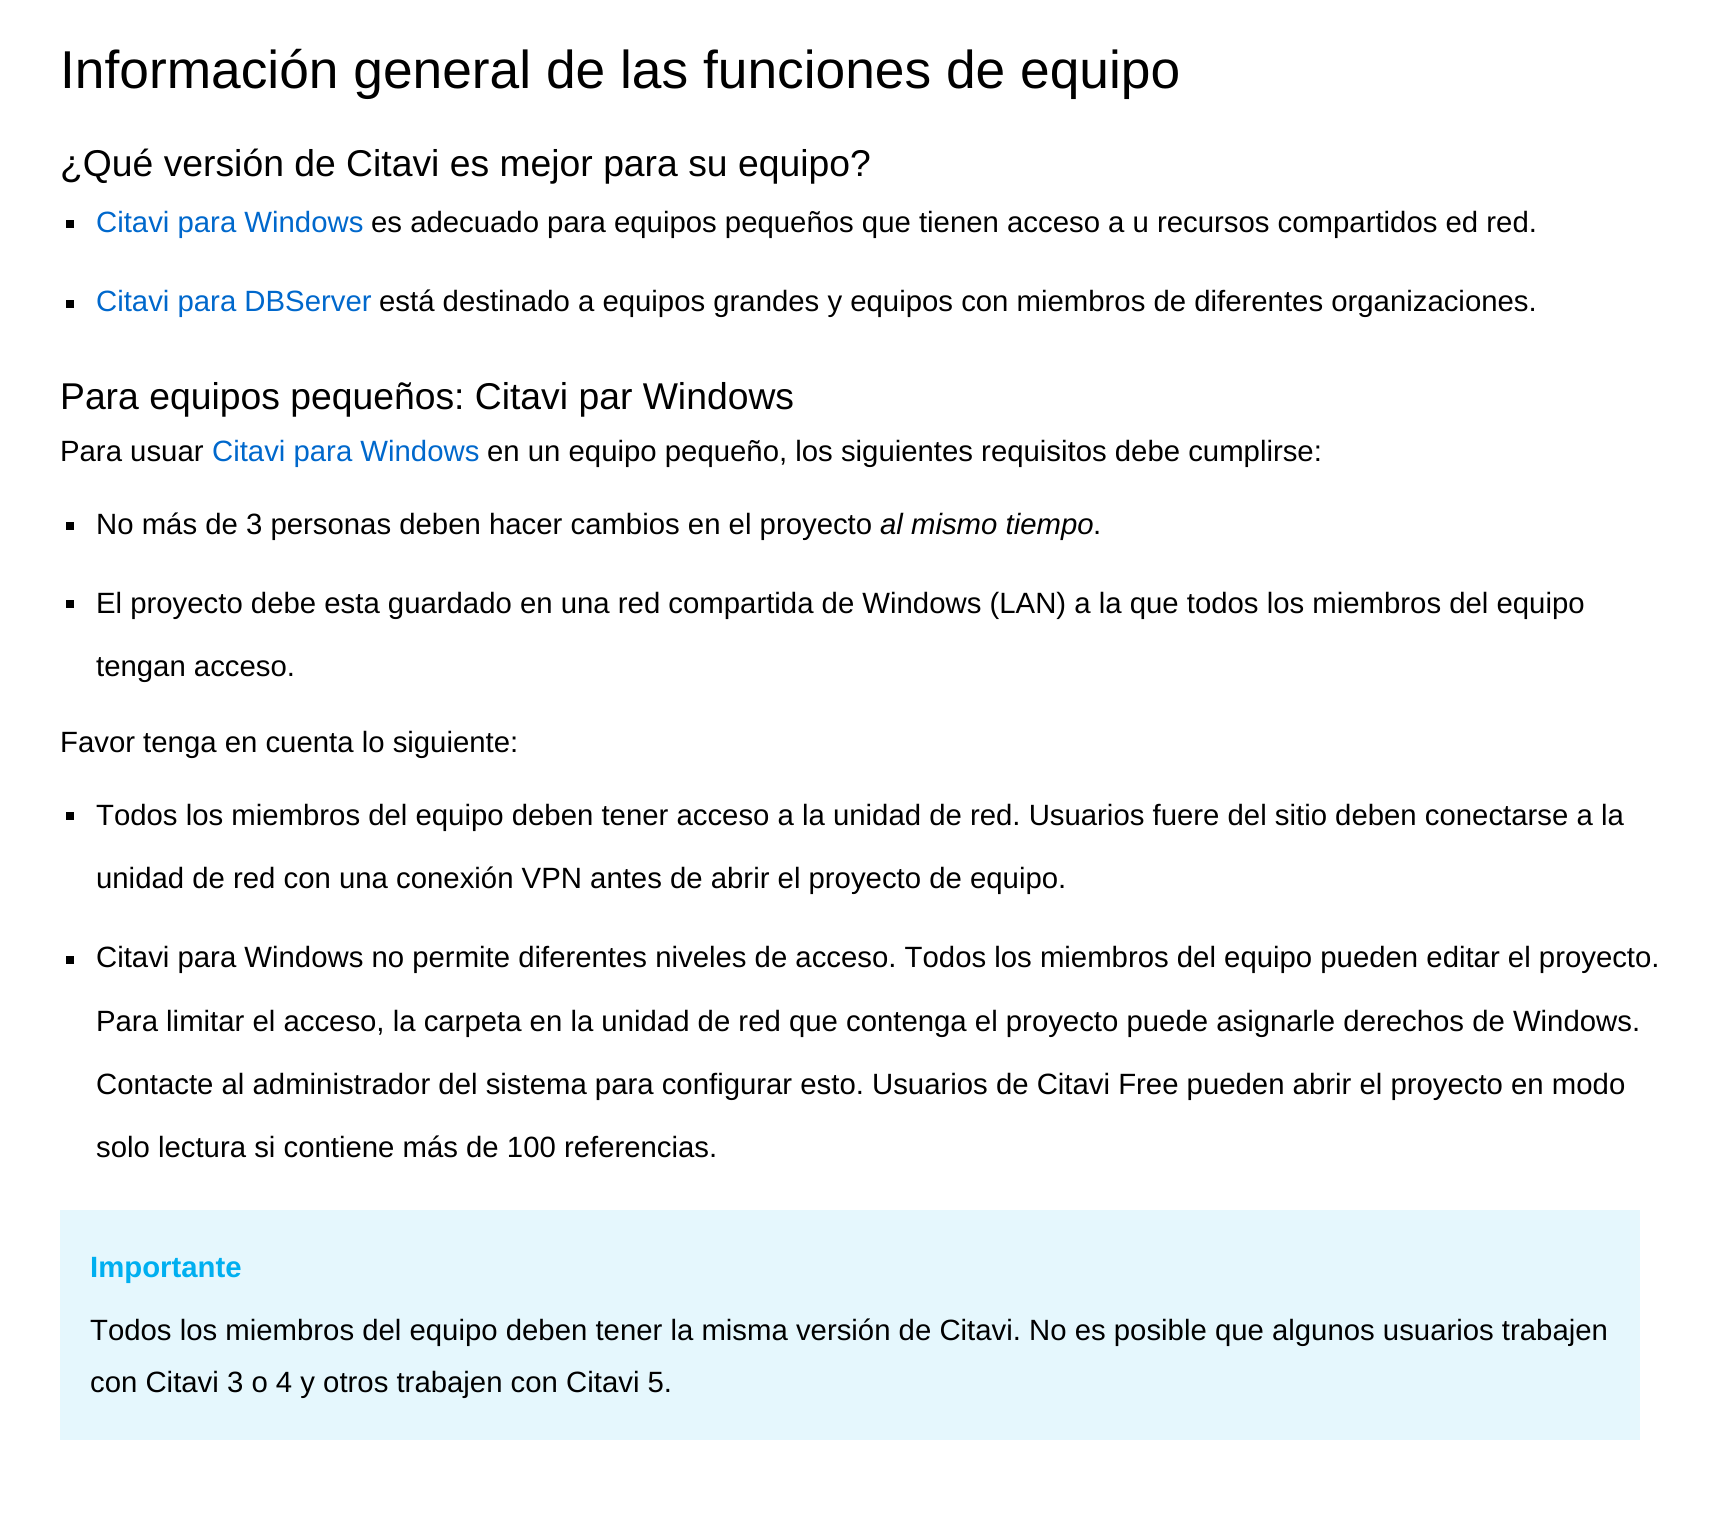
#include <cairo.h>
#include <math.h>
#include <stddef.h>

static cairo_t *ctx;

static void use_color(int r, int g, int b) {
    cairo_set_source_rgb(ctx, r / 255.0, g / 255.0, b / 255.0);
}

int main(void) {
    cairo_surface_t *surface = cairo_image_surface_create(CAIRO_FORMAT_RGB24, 1731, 1531);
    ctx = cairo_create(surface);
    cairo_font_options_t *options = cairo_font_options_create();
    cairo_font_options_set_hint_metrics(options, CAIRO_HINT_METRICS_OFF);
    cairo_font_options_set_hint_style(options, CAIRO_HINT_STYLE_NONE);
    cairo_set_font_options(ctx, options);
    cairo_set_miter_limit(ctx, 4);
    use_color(255, 255, 255);
    cairo_paint(ctx);
    cairo_select_font_face(ctx, "Liberation Sans", CAIRO_FONT_SLANT_NORMAL, CAIRO_FONT_WEIGHT_NORMAL);
    cairo_set_font_size(ctx, 53.3);
    use_color(0, 0, 0);
    cairo_move_to(ctx, 60, 88);
    cairo_show_text(ctx, "Información general de las funciones de equipo");
    cairo_set_font_size(ctx, 37.3);
    cairo_move_to(ctx, 60, 176);
    cairo_show_text(ctx, "¿Qué versión de Citavi es mejor para su equipo?");
    cairo_rectangle(ctx, 66, 220, 8, 8);
    cairo_fill(ctx);
    cairo_set_font_size(ctx, 29.33);
    use_color(0, 104, 204);
    cairo_move_to(ctx, 96, 232);
    cairo_show_text(ctx, "Citavi para Windows");
    use_color(0, 0, 0);
    cairo_move_to(ctx, 371, 232);
    cairo_show_text(ctx, "es adecuado para equipos pequeños que tienen acceso a u recursos compartidos ed red.");
    cairo_rectangle(ctx, 66, 300, 8, 8);
    cairo_fill(ctx);
    use_color(0, 104, 204);
    cairo_move_to(ctx, 96, 311);
    cairo_show_text(ctx, "Citavi para DBServer");
    use_color(0, 0, 0);
    cairo_move_to(ctx, 379, 311);
    cairo_show_text(ctx, "está destinado a equipos grandes y equipos con miembros de diferentes organizaciones.");
    cairo_set_font_size(ctx, 37.3);
    cairo_move_to(ctx, 60, 409);
    cairo_show_text(ctx, "Para equipos pequeños: Citavi par Windows");
    cairo_set_font_size(ctx, 29.33);
    cairo_move_to(ctx, 60, 461);
    cairo_show_text(ctx, "Para usuar");
    use_color(0, 104, 204);
    cairo_move_to(ctx, 212, 461);
    cairo_show_text(ctx, "Citavi para Windows");
    use_color(0, 0, 0);
    cairo_move_to(ctx, 487, 461);
    cairo_show_text(ctx, "en un equipo pequeño, los siguientes requisitos debe cumplirse:");
    cairo_rectangle(ctx, 66, 522, 8, 8);
    cairo_fill(ctx);
    cairo_move_to(ctx, 96, 534);
    cairo_show_text(ctx, "No más de 3 personas deben hacer cambios en el proyecto");
    cairo_select_font_face(ctx, "Liberation Sans", CAIRO_FONT_SLANT_ITALIC, CAIRO_FONT_WEIGHT_NORMAL);
    cairo_move_to(ctx, 880, 534);
    cairo_show_text(ctx, "al mismo tiempo");
    cairo_select_font_face(ctx, "Liberation Sans", CAIRO_FONT_SLANT_NORMAL, CAIRO_FONT_WEIGHT_NORMAL);
    cairo_move_to(ctx, 1093, 534);
    cairo_show_text(ctx, ".");
    cairo_rectangle(ctx, 66, 600, 8, 8);
    cairo_fill(ctx);
    cairo_move_to(ctx, 96, 613);
    cairo_show_text(ctx, "El proyecto debe esta guardado en una red compartida de Windows (LAN) a la que todos los miembros del equipo");
    cairo_move_to(ctx, 96, 676);
    cairo_show_text(ctx, "tengan acceso.");
    cairo_move_to(ctx, 60, 752);
    cairo_show_text(ctx, "Favor tenga en cuenta lo siguiente:");
    cairo_rectangle(ctx, 66, 812, 8, 8);
    cairo_fill(ctx);
    cairo_move_to(ctx, 96, 825);
    cairo_show_text(ctx, "Todos los miembros del equipo deben tener acceso a la unidad de red. Usuarios fuere del sitio deben conectarse a la");
    cairo_move_to(ctx, 96, 888);
    cairo_show_text(ctx, "unidad de red con una conexión VPN antes de abrir el proyecto de equipo.");
    cairo_rectangle(ctx, 66, 956, 8, 8);
    cairo_fill(ctx);
    cairo_move_to(ctx, 96, 967);
    cairo_show_text(ctx, "Citavi para Windows no permite diferentes niveles de acceso. Todos los miembros del equipo pueden editar el proyecto.");
    cairo_move_to(ctx, 96, 1031);
    cairo_show_text(ctx, "Para limitar el acceso, la carpeta en la unidad de red que contenga el proyecto puede asignarle derechos de Windows.");
    cairo_move_to(ctx, 96, 1094);
    cairo_show_text(ctx, "Contacte al administrador del sistema para configurar esto. Usuarios de Citavi Free pueden abrir el proyecto en modo");
    cairo_move_to(ctx, 96, 1157);
    cairo_show_text(ctx, "solo lectura si contiene más de 100 referencias.");
    use_color(229, 247, 253);
    cairo_rectangle(ctx, 60, 1210, 1580, 230);
    cairo_fill(ctx);
    cairo_select_font_face(ctx, "Liberation Sans", CAIRO_FONT_SLANT_NORMAL, CAIRO_FONT_WEIGHT_BOLD);
    use_color(0, 175, 240);
    cairo_move_to(ctx, 90, 1277);
    cairo_show_text(ctx, "Importante");
    cairo_select_font_face(ctx, "Liberation Sans", CAIRO_FONT_SLANT_NORMAL, CAIRO_FONT_WEIGHT_NORMAL);
    use_color(0, 0, 0);
    cairo_move_to(ctx, 90, 1340);
    cairo_show_text(ctx, "Todos los miembros del equipo deben tener la misma versión de Citavi. No es posible que algunos usuarios trabajen");
    cairo_move_to(ctx, 90, 1392);
    cairo_show_text(ctx, "con Citavi 3 o 4 y otros trabajen con Citavi 5.");
    cairo_surface_write_to_png(surface, "result.png");
    cairo_font_options_destroy(options);
    cairo_destroy(ctx);
    cairo_surface_destroy(surface);
    return 0;
}
